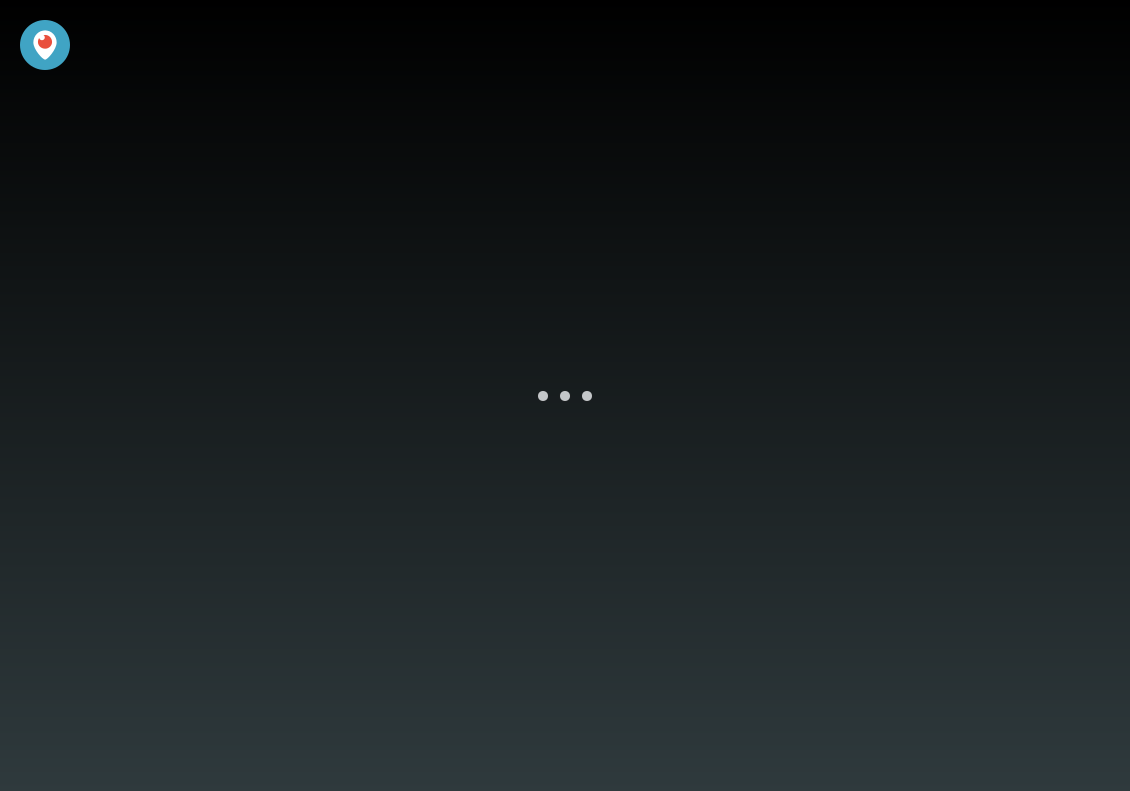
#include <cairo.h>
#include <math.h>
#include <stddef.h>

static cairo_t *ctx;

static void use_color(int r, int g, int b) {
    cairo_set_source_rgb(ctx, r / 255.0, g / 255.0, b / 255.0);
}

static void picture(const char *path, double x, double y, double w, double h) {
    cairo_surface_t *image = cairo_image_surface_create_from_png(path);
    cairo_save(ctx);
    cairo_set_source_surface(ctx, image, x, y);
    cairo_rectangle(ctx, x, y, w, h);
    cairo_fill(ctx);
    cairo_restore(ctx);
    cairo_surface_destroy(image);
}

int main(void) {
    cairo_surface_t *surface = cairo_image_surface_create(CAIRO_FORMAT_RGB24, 1130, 791);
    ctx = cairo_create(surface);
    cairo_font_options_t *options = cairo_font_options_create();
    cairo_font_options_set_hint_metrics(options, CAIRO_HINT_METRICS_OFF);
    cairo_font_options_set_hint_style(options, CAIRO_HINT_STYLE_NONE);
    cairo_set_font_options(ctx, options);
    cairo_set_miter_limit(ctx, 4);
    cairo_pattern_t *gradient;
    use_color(255, 255, 255);
    cairo_paint(ctx);
    gradient = cairo_pattern_create_linear(565, 0, 565, 791);
    cairo_pattern_add_color_stop_rgba(gradient, 0, 0, 0, 0, 1);
    cairo_pattern_add_color_stop_rgba(gradient, 1, 0.184, 0.227, 0.239, 1);
    cairo_set_source(ctx, gradient);
    cairo_pattern_destroy(gradient);
    cairo_rectangle(ctx, 0, 0, 1130, 791);
    cairo_fill(ctx);
    use_color(64, 164, 196);
    cairo_arc(ctx, 45, 45, 25, 0, 2 * M_PI);
    cairo_fill(ctx);
    picture("img1.png", 33, 30, 24, 30);
    cairo_arc(ctx, 543, 396, 5.5, 0, 2 * M_PI);
    use_color(27, 31, 32);
    cairo_set_line_width(ctx, 1);
    cairo_stroke(ctx);
    use_color(196, 199, 201);
    cairo_arc(ctx, 543, 396, 5, 0, 2 * M_PI);
    cairo_fill(ctx);
    cairo_arc(ctx, 565, 396, 5.5, 0, 2 * M_PI);
    use_color(27, 31, 32);
    cairo_stroke(ctx);
    use_color(196, 199, 201);
    cairo_arc(ctx, 565, 396, 5, 0, 2 * M_PI);
    cairo_fill(ctx);
    cairo_arc(ctx, 587, 396, 5.5, 0, 2 * M_PI);
    use_color(27, 31, 32);
    cairo_stroke(ctx);
    use_color(196, 199, 201);
    cairo_arc(ctx, 587, 396, 5, 0, 2 * M_PI);
    cairo_fill(ctx);
    cairo_surface_write_to_png(surface, "result.png");
    cairo_font_options_destroy(options);
    cairo_destroy(ctx);
    cairo_surface_destroy(surface);
    return 0;
}
